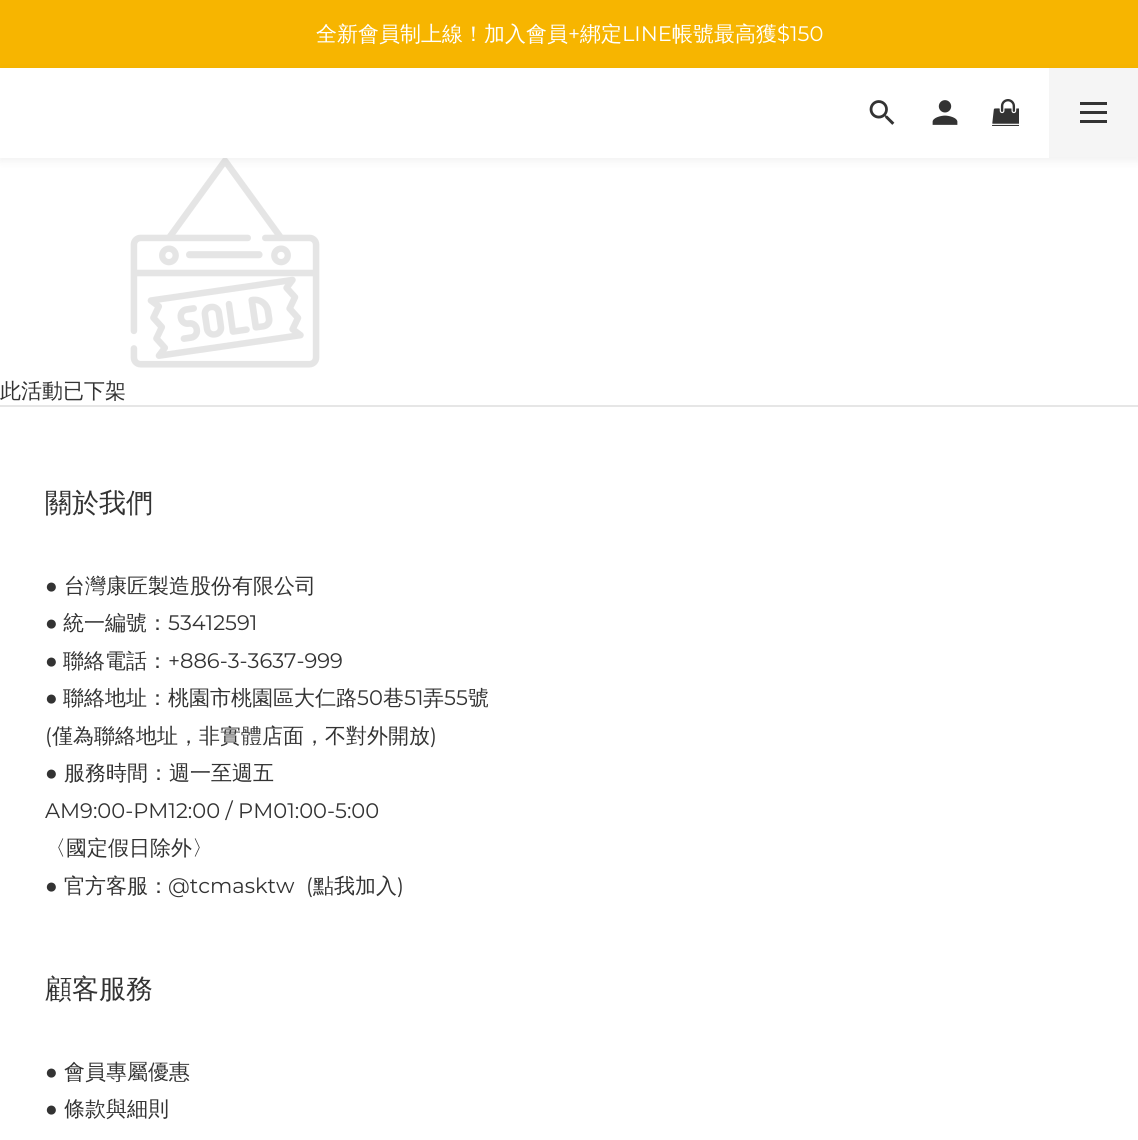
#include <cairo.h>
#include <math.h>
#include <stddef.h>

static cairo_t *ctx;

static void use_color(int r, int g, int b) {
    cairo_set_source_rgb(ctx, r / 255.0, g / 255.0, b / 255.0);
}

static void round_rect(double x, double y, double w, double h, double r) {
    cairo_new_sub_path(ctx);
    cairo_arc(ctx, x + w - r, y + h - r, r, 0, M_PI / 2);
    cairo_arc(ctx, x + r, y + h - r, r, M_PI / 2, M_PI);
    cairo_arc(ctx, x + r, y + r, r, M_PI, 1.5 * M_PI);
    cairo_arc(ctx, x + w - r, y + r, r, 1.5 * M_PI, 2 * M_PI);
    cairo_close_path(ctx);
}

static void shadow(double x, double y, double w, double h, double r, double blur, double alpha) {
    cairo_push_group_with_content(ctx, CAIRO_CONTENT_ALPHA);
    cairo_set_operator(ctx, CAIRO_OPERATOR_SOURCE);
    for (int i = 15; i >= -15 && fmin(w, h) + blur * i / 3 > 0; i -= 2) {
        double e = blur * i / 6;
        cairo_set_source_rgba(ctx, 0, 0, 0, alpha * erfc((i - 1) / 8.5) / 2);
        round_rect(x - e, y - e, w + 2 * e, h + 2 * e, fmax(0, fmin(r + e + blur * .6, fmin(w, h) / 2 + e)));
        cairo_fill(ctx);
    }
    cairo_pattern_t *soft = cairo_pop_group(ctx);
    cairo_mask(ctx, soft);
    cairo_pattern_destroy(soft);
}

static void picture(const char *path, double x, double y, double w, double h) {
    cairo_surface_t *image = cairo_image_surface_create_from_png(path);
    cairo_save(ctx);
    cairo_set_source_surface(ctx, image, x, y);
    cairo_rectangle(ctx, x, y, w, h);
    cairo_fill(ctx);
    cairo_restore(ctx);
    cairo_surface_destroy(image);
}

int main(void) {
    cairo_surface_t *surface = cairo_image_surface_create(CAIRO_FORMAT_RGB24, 1138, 1140);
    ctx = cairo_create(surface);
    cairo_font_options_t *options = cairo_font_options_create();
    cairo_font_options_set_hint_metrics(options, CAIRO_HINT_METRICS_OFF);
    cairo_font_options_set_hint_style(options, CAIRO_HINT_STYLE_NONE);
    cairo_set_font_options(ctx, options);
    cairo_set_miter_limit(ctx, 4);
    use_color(255, 255, 255);
    cairo_paint(ctx);
    use_color(247, 181, 0);
    cairo_rectangle(ctx, 0, 0, 1138, 68);
    cairo_fill(ctx);
    cairo_select_font_face(ctx, "WenQuanYi Zen Hei Medium", CAIRO_FONT_SLANT_NORMAL, CAIRO_FONT_WEIGHT_NORMAL);
    cairo_set_font_size(ctx, 21);
    use_color(255, 255, 255);
    cairo_move_to(ctx, 316, 41);
    cairo_show_text(ctx, "全新會員制上線！加入會員");
    cairo_select_font_face(ctx, "Montserrat", CAIRO_FONT_SLANT_NORMAL, CAIRO_FONT_WEIGHT_NORMAL);
    cairo_move_to(ctx, 568, 41);
    cairo_show_text(ctx, "+");
    cairo_select_font_face(ctx, "WenQuanYi Zen Hei Medium", CAIRO_FONT_SLANT_NORMAL, CAIRO_FONT_WEIGHT_NORMAL);
    cairo_move_to(ctx, 580, 41);
    cairo_show_text(ctx, "綁定");
    cairo_select_font_face(ctx, "Montserrat", CAIRO_FONT_SLANT_NORMAL, CAIRO_FONT_WEIGHT_NORMAL);
    cairo_move_to(ctx, 622, 41);
    cairo_show_text(ctx, "LINE");
    cairo_select_font_face(ctx, "WenQuanYi Zen Hei Medium", CAIRO_FONT_SLANT_NORMAL, CAIRO_FONT_WEIGHT_NORMAL);
    cairo_move_to(ctx, 672, 41);
    cairo_show_text(ctx, "帳號最高獲");
    cairo_select_font_face(ctx, "Montserrat", CAIRO_FONT_SLANT_NORMAL, CAIRO_FONT_WEIGHT_NORMAL);
    cairo_move_to(ctx, 777, 41);
    cairo_show_text(ctx, "$150");
    picture("img4.png", 130, 158, 190, 210);
    use_color(0, 0, 0);
    shadow(0, 71, 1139, 90, 0, 4.5, 0.06);
    use_color(255, 255, 255);
    cairo_rectangle(ctx, 0, 68, 1049, 90);
    cairo_fill(ctx);
    picture("img1.png", 869, 100, 26, 25);
    picture("img2.png", 932, 100, 26, 25);
    picture("img3.png", 992, 99, 27, 27);
    use_color(245, 245, 245);
    cairo_rectangle(ctx, 1049, 68, 89, 89);
    cairo_fill(ctx);
    use_color(51, 51, 51);
    cairo_rectangle(ctx, 1080, 111, 27, 3);
    cairo_fill(ctx);
    cairo_rectangle(ctx, 1080, 102, 27, 3);
    cairo_fill(ctx);
    cairo_rectangle(ctx, 1080, 120, 27, 3);
    cairo_fill(ctx);
    cairo_select_font_face(ctx, "WenQuanYi Zen Hei Medium", CAIRO_FONT_SLANT_NORMAL, CAIRO_FONT_WEIGHT_NORMAL);
    cairo_move_to(ctx, 0, 398);
    cairo_show_text(ctx, "此活動已下架");
    use_color(230, 230, 230);
    cairo_rectangle(ctx, 0, 405, 1138, 2);
    cairo_fill(ctx);
    cairo_set_font_size(ctx, 27);
    use_color(51, 51, 51);
    cairo_move_to(ctx, 45, 512);
    cairo_show_text(ctx, "關於我們");
    cairo_select_font_face(ctx, "Liberation Sans", CAIRO_FONT_SLANT_NORMAL, CAIRO_FONT_WEIGHT_NORMAL);
    cairo_set_font_size(ctx, 21);
    cairo_move_to(ctx, 45, 593);
    cairo_show_text(ctx, "●");
    cairo_select_font_face(ctx, "WenQuanYi Zen Hei Medium", CAIRO_FONT_SLANT_NORMAL, CAIRO_FONT_WEIGHT_NORMAL);
    cairo_move_to(ctx, 64, 593);
    cairo_show_text(ctx, "台灣康匠製造股份有限公司");
    cairo_select_font_face(ctx, "Liberation Sans", CAIRO_FONT_SLANT_NORMAL, CAIRO_FONT_WEIGHT_NORMAL);
    cairo_move_to(ctx, 45, 630);
    cairo_show_text(ctx, "●");
    cairo_select_font_face(ctx, "WenQuanYi Zen Hei Medium", CAIRO_FONT_SLANT_NORMAL, CAIRO_FONT_WEIGHT_NORMAL);
    cairo_move_to(ctx, 63, 630);
    cairo_show_text(ctx, "統一編號：");
    cairo_select_font_face(ctx, "Montserrat", CAIRO_FONT_SLANT_NORMAL, CAIRO_FONT_WEIGHT_NORMAL);
    cairo_move_to(ctx, 168, 630);
    cairo_show_text(ctx, "53412591");
    cairo_select_font_face(ctx, "Liberation Sans", CAIRO_FONT_SLANT_NORMAL, CAIRO_FONT_WEIGHT_NORMAL);
    cairo_move_to(ctx, 45, 668);
    cairo_show_text(ctx, "●");
    cairo_select_font_face(ctx, "WenQuanYi Zen Hei Medium", CAIRO_FONT_SLANT_NORMAL, CAIRO_FONT_WEIGHT_NORMAL);
    cairo_move_to(ctx, 63, 668);
    cairo_show_text(ctx, "聯絡電話：");
    cairo_select_font_face(ctx, "Montserrat", CAIRO_FONT_SLANT_NORMAL, CAIRO_FONT_WEIGHT_NORMAL);
    cairo_move_to(ctx, 168, 668);
    cairo_show_text(ctx, "+886-3-3637-999");
    cairo_select_font_face(ctx, "Liberation Sans", CAIRO_FONT_SLANT_NORMAL, CAIRO_FONT_WEIGHT_NORMAL);
    cairo_move_to(ctx, 45, 705);
    cairo_show_text(ctx, "●");
    cairo_select_font_face(ctx, "WenQuanYi Zen Hei Medium", CAIRO_FONT_SLANT_NORMAL, CAIRO_FONT_WEIGHT_NORMAL);
    cairo_move_to(ctx, 63, 705);
    cairo_show_text(ctx, "聯絡地址：桃園市桃園區大仁路");
    cairo_select_font_face(ctx, "Montserrat", CAIRO_FONT_SLANT_NORMAL, CAIRO_FONT_WEIGHT_NORMAL);
    cairo_move_to(ctx, 357, 705);
    cairo_show_text(ctx, "50");
    cairo_select_font_face(ctx, "WenQuanYi Zen Hei Medium", CAIRO_FONT_SLANT_NORMAL, CAIRO_FONT_WEIGHT_NORMAL);
    cairo_move_to(ctx, 383, 705);
    cairo_show_text(ctx, "巷");
    cairo_select_font_face(ctx, "Montserrat", CAIRO_FONT_SLANT_NORMAL, CAIRO_FONT_WEIGHT_NORMAL);
    cairo_move_to(ctx, 404, 705);
    cairo_show_text(ctx, "51");
    cairo_select_font_face(ctx, "WenQuanYi Zen Hei Medium", CAIRO_FONT_SLANT_NORMAL, CAIRO_FONT_WEIGHT_NORMAL);
    cairo_move_to(ctx, 423, 705);
    cairo_show_text(ctx, "弄");
    cairo_select_font_face(ctx, "Montserrat", CAIRO_FONT_SLANT_NORMAL, CAIRO_FONT_WEIGHT_NORMAL);
    cairo_move_to(ctx, 444, 705);
    cairo_show_text(ctx, "55");
    cairo_select_font_face(ctx, "WenQuanYi Zen Hei Medium", CAIRO_FONT_SLANT_NORMAL, CAIRO_FONT_WEIGHT_NORMAL);
    cairo_move_to(ctx, 468, 705);
    cairo_show_text(ctx, "號");
    cairo_select_font_face(ctx, "Montserrat", CAIRO_FONT_SLANT_NORMAL, CAIRO_FONT_WEIGHT_NORMAL);
    cairo_move_to(ctx, 45, 743);
    cairo_show_text(ctx, "(");
    cairo_select_font_face(ctx, "WenQuanYi Zen Hei Medium", CAIRO_FONT_SLANT_NORMAL, CAIRO_FONT_WEIGHT_NORMAL);
    cairo_move_to(ctx, 52, 743);
    cairo_show_text(ctx, "僅為聯絡地址，非實體店面，不對外開放");
    cairo_select_font_face(ctx, "Montserrat", CAIRO_FONT_SLANT_NORMAL, CAIRO_FONT_WEIGHT_NORMAL);
    cairo_move_to(ctx, 430, 743);
    cairo_show_text(ctx, ")");
    cairo_select_font_face(ctx, "Liberation Sans", CAIRO_FONT_SLANT_NORMAL, CAIRO_FONT_WEIGHT_NORMAL);
    cairo_move_to(ctx, 45, 780);
    cairo_show_text(ctx, "●");
    cairo_select_font_face(ctx, "WenQuanYi Zen Hei Medium", CAIRO_FONT_SLANT_NORMAL, CAIRO_FONT_WEIGHT_NORMAL);
    cairo_move_to(ctx, 64, 780);
    cairo_show_text(ctx, "服務時間：週一至週五");
    cairo_select_font_face(ctx, "Montserrat", CAIRO_FONT_SLANT_NORMAL, CAIRO_FONT_WEIGHT_NORMAL);
    cairo_move_to(ctx, 45, 818);
    cairo_show_text(ctx, "AM9:00-PM12:00 / PM01:00-5:00");
    cairo_select_font_face(ctx, "WenQuanYi Zen Hei Medium", CAIRO_FONT_SLANT_NORMAL, CAIRO_FONT_WEIGHT_NORMAL);
    cairo_move_to(ctx, 45, 855);
    cairo_show_text(ctx, "〈國定假日除外〉");
    cairo_select_font_face(ctx, "Liberation Sans", CAIRO_FONT_SLANT_NORMAL, CAIRO_FONT_WEIGHT_NORMAL);
    cairo_move_to(ctx, 45, 893);
    cairo_show_text(ctx, "●");
    cairo_select_font_face(ctx, "WenQuanYi Zen Hei Medium", CAIRO_FONT_SLANT_NORMAL, CAIRO_FONT_WEIGHT_NORMAL);
    cairo_move_to(ctx, 64, 893);
    cairo_show_text(ctx, "官方客服：");
    cairo_select_font_face(ctx, "Montserrat", CAIRO_FONT_SLANT_NORMAL, CAIRO_FONT_WEIGHT_NORMAL);
    cairo_move_to(ctx, 168, 893);
    cairo_show_text(ctx, "@tcmasktw");
    cairo_move_to(ctx, 306, 893);
    cairo_show_text(ctx, "(");
    cairo_select_font_face(ctx, "WenQuanYi Zen Hei Medium", CAIRO_FONT_SLANT_NORMAL, CAIRO_FONT_WEIGHT_NORMAL);
    cairo_move_to(ctx, 313, 893);
    cairo_show_text(ctx, "點我加入");
    cairo_select_font_face(ctx, "Montserrat", CAIRO_FONT_SLANT_NORMAL, CAIRO_FONT_WEIGHT_NORMAL);
    cairo_move_to(ctx, 397, 893);
    cairo_show_text(ctx, ")");
    cairo_select_font_face(ctx, "WenQuanYi Zen Hei Medium", CAIRO_FONT_SLANT_NORMAL, CAIRO_FONT_WEIGHT_NORMAL);
    cairo_set_font_size(ctx, 27);
    cairo_move_to(ctx, 45, 998);
    cairo_show_text(ctx, "顧客服務");
    cairo_select_font_face(ctx, "Liberation Sans", CAIRO_FONT_SLANT_NORMAL, CAIRO_FONT_WEIGHT_NORMAL);
    cairo_set_font_size(ctx, 21);
    cairo_move_to(ctx, 45, 1079);
    cairo_show_text(ctx, "●");
    cairo_select_font_face(ctx, "WenQuanYi Zen Hei Medium", CAIRO_FONT_SLANT_NORMAL, CAIRO_FONT_WEIGHT_NORMAL);
    cairo_move_to(ctx, 64, 1079);
    cairo_show_text(ctx, "會員專屬優惠");
    cairo_select_font_face(ctx, "Liberation Sans", CAIRO_FONT_SLANT_NORMAL, CAIRO_FONT_WEIGHT_NORMAL);
    cairo_move_to(ctx, 45, 1116);
    cairo_show_text(ctx, "●");
    cairo_select_font_face(ctx, "WenQuanYi Zen Hei Medium", CAIRO_FONT_SLANT_NORMAL, CAIRO_FONT_WEIGHT_NORMAL);
    cairo_move_to(ctx, 64, 1116);
    cairo_show_text(ctx, "條款與細則");
    cairo_surface_write_to_png(surface, "result.png");
    cairo_font_options_destroy(options);
    cairo_destroy(ctx);
    cairo_surface_destroy(surface);
    return 0;
}
